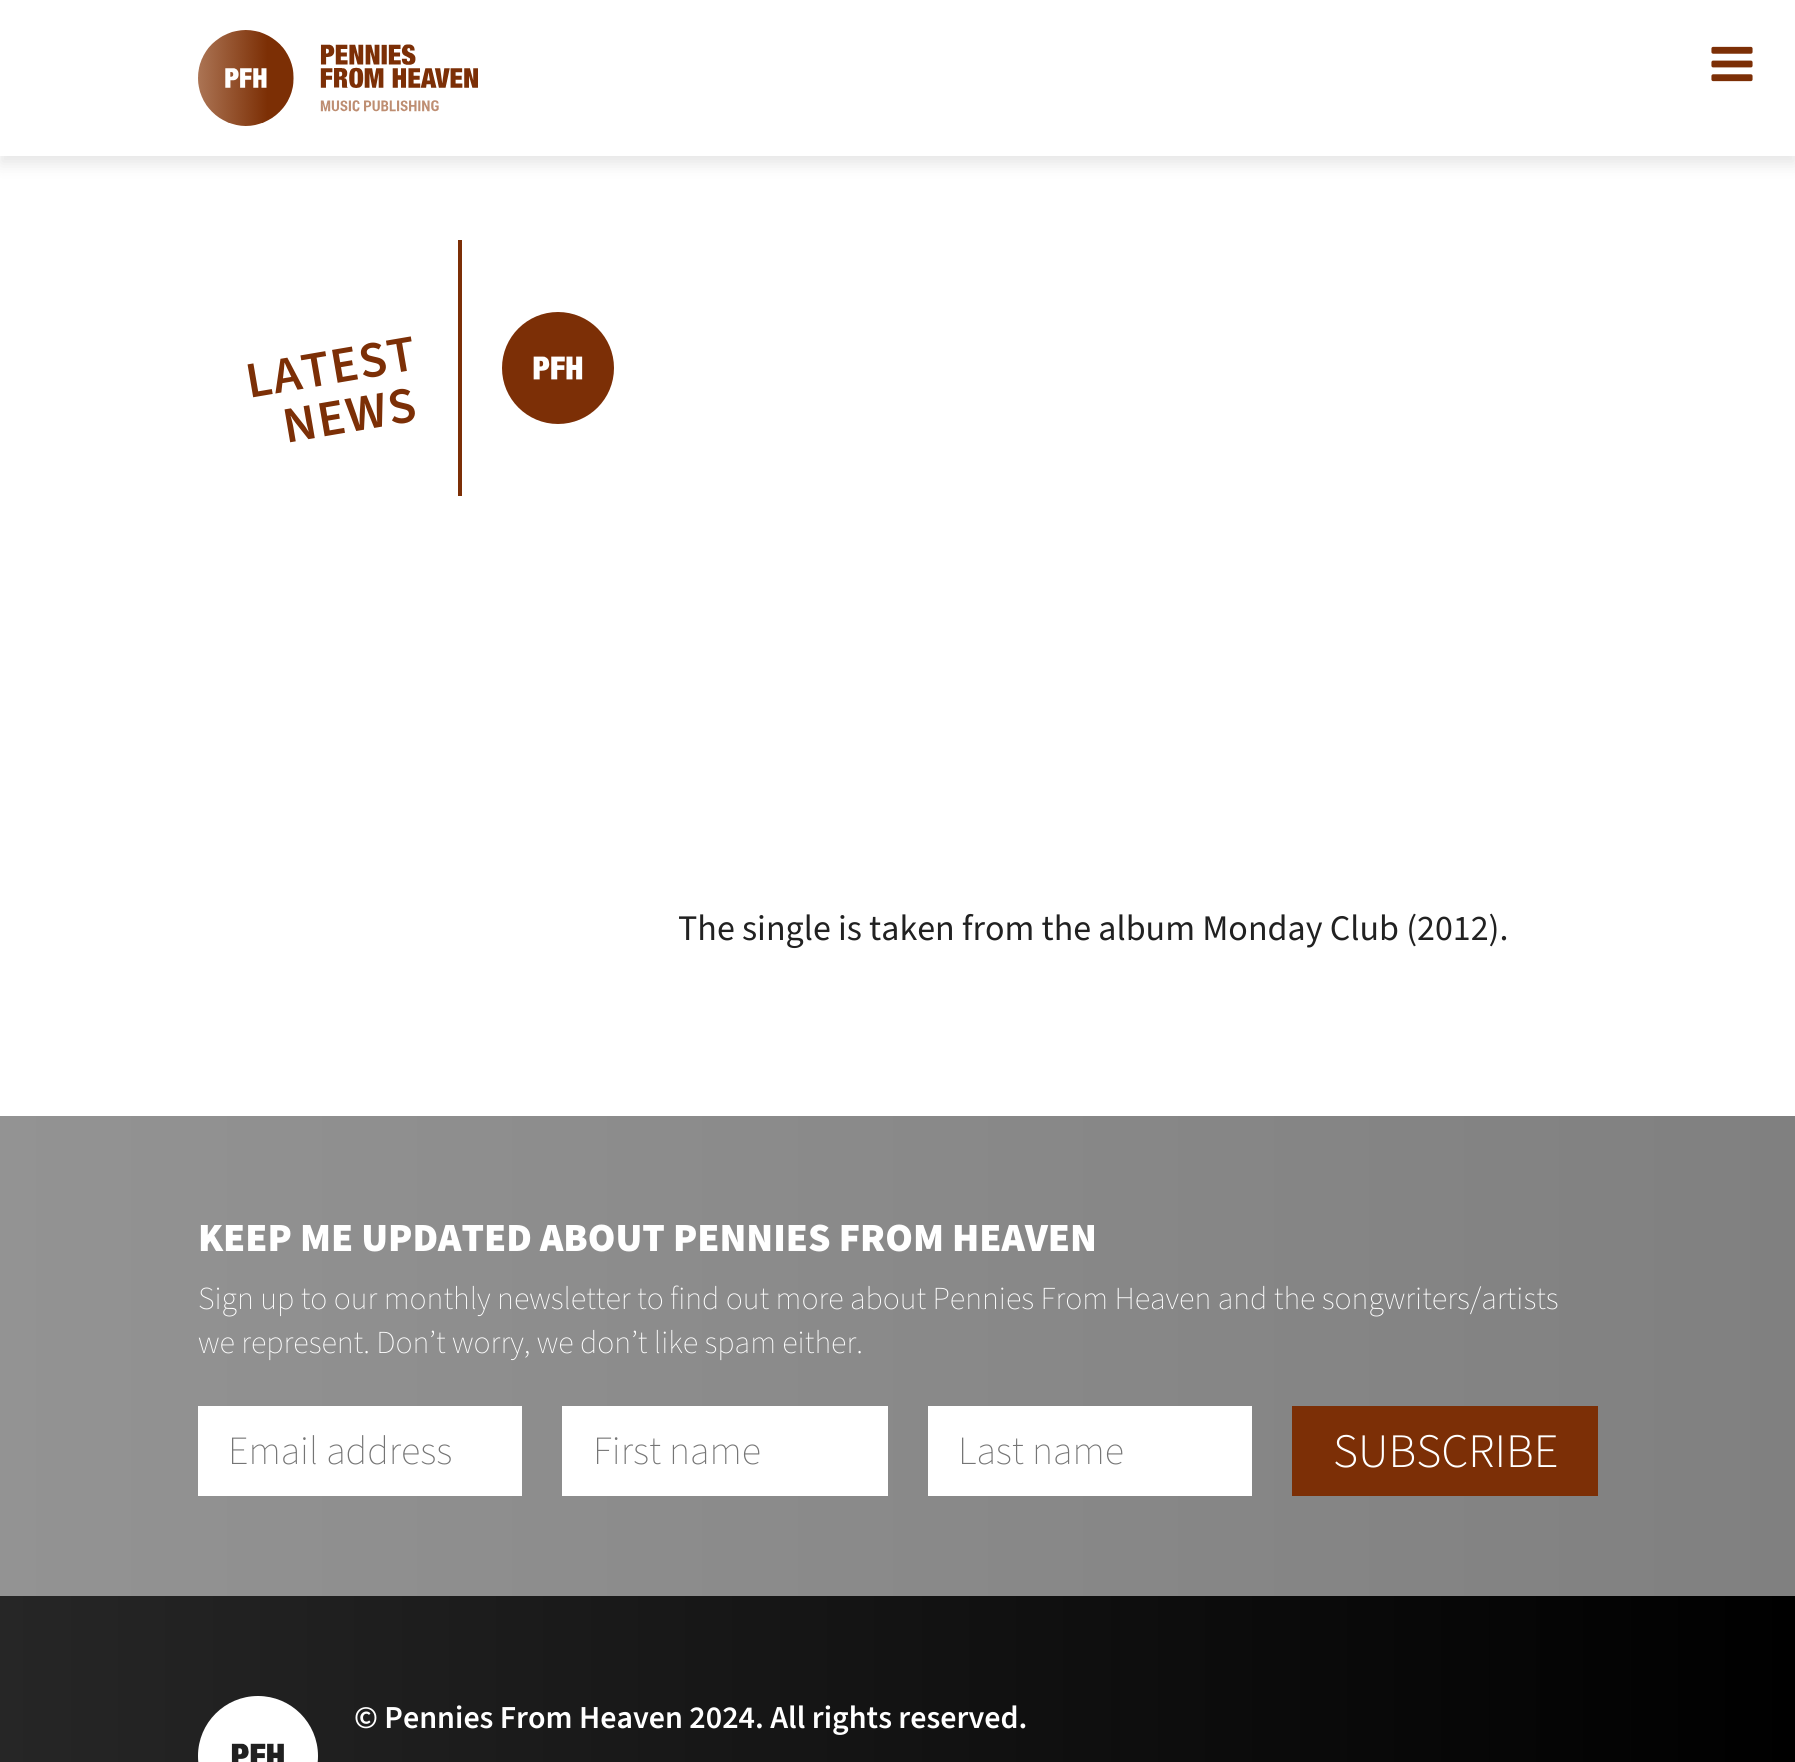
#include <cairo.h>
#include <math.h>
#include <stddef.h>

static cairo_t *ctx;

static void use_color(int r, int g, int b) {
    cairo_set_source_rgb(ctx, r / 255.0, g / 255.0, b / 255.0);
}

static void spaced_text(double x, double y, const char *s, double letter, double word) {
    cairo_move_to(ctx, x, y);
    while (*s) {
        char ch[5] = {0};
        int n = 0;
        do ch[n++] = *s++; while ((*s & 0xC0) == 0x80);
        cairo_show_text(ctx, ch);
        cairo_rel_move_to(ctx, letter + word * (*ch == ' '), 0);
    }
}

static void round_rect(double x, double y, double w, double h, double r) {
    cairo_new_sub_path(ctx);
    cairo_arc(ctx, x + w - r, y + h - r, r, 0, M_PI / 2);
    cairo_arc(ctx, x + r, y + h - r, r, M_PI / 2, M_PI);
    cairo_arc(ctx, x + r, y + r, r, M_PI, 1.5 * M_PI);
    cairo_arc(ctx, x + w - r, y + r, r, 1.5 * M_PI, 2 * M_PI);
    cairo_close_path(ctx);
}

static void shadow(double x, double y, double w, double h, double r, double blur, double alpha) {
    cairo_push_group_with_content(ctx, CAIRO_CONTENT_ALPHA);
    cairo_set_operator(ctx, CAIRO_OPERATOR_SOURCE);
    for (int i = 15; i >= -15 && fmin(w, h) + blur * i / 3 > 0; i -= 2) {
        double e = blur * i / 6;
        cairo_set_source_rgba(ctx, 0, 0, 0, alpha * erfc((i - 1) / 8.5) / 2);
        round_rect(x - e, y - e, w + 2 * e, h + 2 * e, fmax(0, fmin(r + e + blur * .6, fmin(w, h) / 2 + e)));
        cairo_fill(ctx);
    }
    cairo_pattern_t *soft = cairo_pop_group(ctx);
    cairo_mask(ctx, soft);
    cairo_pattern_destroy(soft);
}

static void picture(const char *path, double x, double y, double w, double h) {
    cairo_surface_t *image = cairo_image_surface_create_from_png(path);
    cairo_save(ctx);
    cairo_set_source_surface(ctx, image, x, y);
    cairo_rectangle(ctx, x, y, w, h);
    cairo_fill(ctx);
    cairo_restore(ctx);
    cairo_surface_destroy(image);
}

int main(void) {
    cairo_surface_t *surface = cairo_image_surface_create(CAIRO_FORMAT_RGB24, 1795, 1762);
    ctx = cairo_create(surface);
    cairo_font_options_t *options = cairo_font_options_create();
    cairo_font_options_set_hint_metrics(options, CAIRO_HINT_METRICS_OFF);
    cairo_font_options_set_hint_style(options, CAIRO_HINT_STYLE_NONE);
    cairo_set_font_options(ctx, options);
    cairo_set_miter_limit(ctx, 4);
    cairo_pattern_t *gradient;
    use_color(255, 255, 255);
    cairo_paint(ctx);
    use_color(0, 0, 0);
    shadow(0, 8, 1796, 156, 0, 8, 0.1);
    use_color(255, 255, 255);
    cairo_rectangle(ctx, 0, 0, 1795, 156);
    cairo_fill(ctx);
    picture("img1.png", 1711, 46, 42, 36);
    picture("img2.png", 198, 30, 280, 96);
    cairo_select_font_face(ctx, "Source Sans 3 SemiBold", CAIRO_FONT_SLANT_NORMAL, CAIRO_FONT_WEIGHT_NORMAL);
    cairo_set_font_size(ctx, 51);
    use_color(124, 47, 6);
    cairo_save(ctx);
    cairo_translate(ctx, 249, 398);
    cairo_rotate(ctx, -9.7 * M_PI / 180);
    spaced_text(0, 0, "LATEST", 1.25, 0);
    cairo_restore(ctx);
    cairo_save(ctx);
    cairo_translate(ctx, 286, 443);
    cairo_rotate(ctx, -9.7 * M_PI / 180);
    spaced_text(0, 0, "NEWS", 1.5, 0);
    cairo_restore(ctx);
    cairo_rectangle(ctx, 458, 240, 4, 256);
    cairo_fill(ctx);
    picture("img3.png", 502, 312, 112, 112);
    cairo_select_font_face(ctx, "Source Sans 3", CAIRO_FONT_SLANT_NORMAL, CAIRO_FONT_WEIGHT_NORMAL);
    cairo_set_font_size(ctx, 36);
    use_color(33, 33, 33);
    cairo_move_to(ctx, 678, 940);
    cairo_show_text(ctx, "The single is taken from the album Monday Club (2012).");
    gradient = cairo_pattern_create_linear(0, 1356, 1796, 1356);
    cairo_pattern_add_color_stop_rgba(gradient, 0, 0.576, 0.576, 0.576, 1);
    cairo_pattern_add_color_stop_rgba(gradient, 1, 0.502, 0.502, 0.502, 1);
    cairo_set_source(ctx, gradient);
    cairo_pattern_destroy(gradient);
    cairo_rectangle(ctx, 0, 1116, 1795, 480);
    cairo_fill(ctx);
    cairo_select_font_face(ctx, "Source Sans 3 Black", CAIRO_FONT_SLANT_NORMAL, CAIRO_FONT_WEIGHT_NORMAL);
    cairo_set_font_size(ctx, 40);
    use_color(255, 255, 255);
    cairo_move_to(ctx, 198, 1251);
    cairo_show_text(ctx, "KEEP ME UPDATED ABOUT PENNIES FROM HEAVEN");
    cairo_select_font_face(ctx, "Source Sans 3 ExtraLight", CAIRO_FONT_SLANT_NORMAL, CAIRO_FONT_WEIGHT_NORMAL);
    cairo_set_font_size(ctx, 32);
    cairo_move_to(ctx, 198, 1309);
    cairo_show_text(ctx, "Sign up to our monthly newsletter to find out more about Pennies From Heaven and the songwriters/artists");
    cairo_move_to(ctx, 198, 1353);
    cairo_show_text(ctx, "we represent. Don’t worry, we don’t like spam either.");
    cairo_rectangle(ctx, 198, 1406, 324, 90);
    cairo_fill(ctx);
    cairo_set_font_size(ctx, 40);
    use_color(117, 117, 117);
    cairo_move_to(ctx, 228, 1464);
    cairo_show_text(ctx, "Email address");
    use_color(255, 255, 255);
    cairo_rectangle(ctx, 562, 1406, 326, 90);
    cairo_fill(ctx);
    use_color(117, 117, 117);
    cairo_move_to(ctx, 593, 1464);
    cairo_show_text(ctx, "First name");
    use_color(255, 255, 255);
    cairo_rectangle(ctx, 928, 1406, 324, 90);
    cairo_fill(ctx);
    use_color(117, 117, 117);
    cairo_move_to(ctx, 958, 1464);
    cairo_show_text(ctx, "Last name");
    use_color(124, 47, 6);
    cairo_rectangle(ctx, 1292, 1406, 306, 90);
    cairo_fill(ctx);
    cairo_select_font_face(ctx, "Source Sans 3 Light", CAIRO_FONT_SLANT_NORMAL, CAIRO_FONT_WEIGHT_NORMAL);
    cairo_set_font_size(ctx, 48);
    use_color(255, 255, 255);
    cairo_move_to(ctx, 1333, 1467);
    cairo_show_text(ctx, "SUBSCRIBE");
    gradient = cairo_pattern_create_linear(0, 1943, 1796, 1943);
    cairo_pattern_add_color_stop_rgba(gradient, 0, 0.149, 0.149, 0.149, 1);
    cairo_pattern_add_color_stop_rgba(gradient, 1, 0, 0, 0, 1);
    cairo_set_source(ctx, gradient);
    cairo_pattern_destroy(gradient);
    cairo_rectangle(ctx, 0, 1596, 1795, 166);
    cairo_fill(ctx);
    picture("img4.png", 198, 1696, 120, 66);
    cairo_select_font_face(ctx, "Source Sans 3 SemiBold", CAIRO_FONT_SLANT_NORMAL, CAIRO_FONT_WEIGHT_NORMAL);
    cairo_set_font_size(ctx, 32);
    use_color(255, 255, 255);
    cairo_move_to(ctx, 354, 1728);
    cairo_show_text(ctx, "© Pennies From Heaven 2024. All rights reserved.");
    cairo_surface_write_to_png(surface, "result.png");
    cairo_font_options_destroy(options);
    cairo_destroy(ctx);
    cairo_surface_destroy(surface);
    return 0;
}
